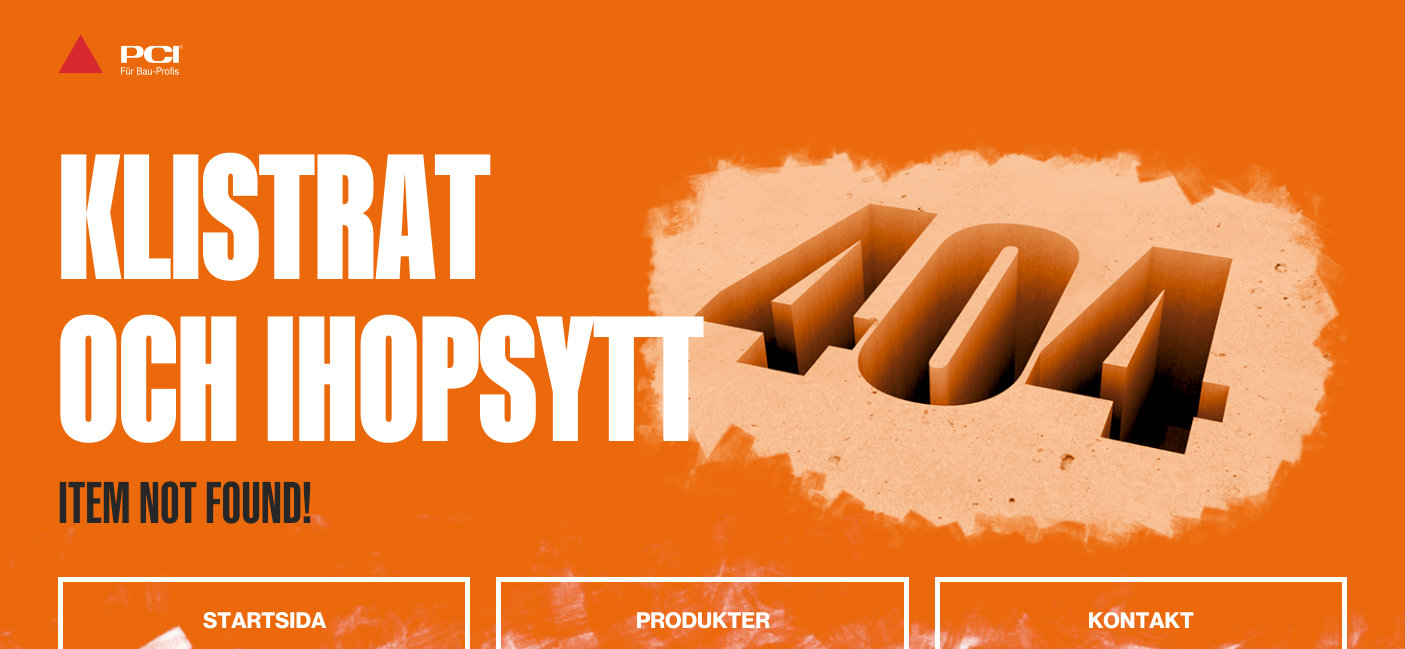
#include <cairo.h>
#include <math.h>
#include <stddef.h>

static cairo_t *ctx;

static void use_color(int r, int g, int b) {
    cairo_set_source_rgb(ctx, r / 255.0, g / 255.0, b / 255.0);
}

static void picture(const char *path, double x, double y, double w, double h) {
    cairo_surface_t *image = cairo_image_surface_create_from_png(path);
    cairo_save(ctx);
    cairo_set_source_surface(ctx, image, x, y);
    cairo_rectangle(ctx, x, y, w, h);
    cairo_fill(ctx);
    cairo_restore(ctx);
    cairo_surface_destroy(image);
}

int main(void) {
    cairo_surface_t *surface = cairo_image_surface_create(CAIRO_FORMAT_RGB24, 1405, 649);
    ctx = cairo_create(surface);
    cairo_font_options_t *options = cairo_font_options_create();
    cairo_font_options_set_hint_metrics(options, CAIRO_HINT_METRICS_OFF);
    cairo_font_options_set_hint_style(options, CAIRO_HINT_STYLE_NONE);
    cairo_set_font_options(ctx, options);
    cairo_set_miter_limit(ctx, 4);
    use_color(235, 105, 11);
    cairo_paint(ctx);
    picture("img1.png", 0, 514, 1405, 135);
    picture("img2.png", 58, 34, 125, 41);
    cairo_select_font_face(ctx, "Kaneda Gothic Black", CAIRO_FONT_SLANT_NORMAL, CAIRO_FONT_WEIGHT_NORMAL);
    cairo_set_font_size(ctx, 180.5);
    use_color(255, 255, 255);
    cairo_move_to(ctx, 58, 279);
    cairo_show_text(ctx, "KLISTRAT");
    picture("img3.png", 634, 127, 713, 428);
    cairo_move_to(ctx, 58, 441);
    cairo_show_text(ctx, "OCH IHOPSYTT");
    cairo_select_font_face(ctx, "KanedaGothic", CAIRO_FONT_SLANT_NORMAL, CAIRO_FONT_WEIGHT_BOLD);
    cairo_set_font_size(ctx, 59.5);
    use_color(39, 39, 39);
    cairo_move_to(ctx, 58, 523);
    cairo_show_text(ctx, "ITEM NOT FOUND!");
    cairo_rectangle(ctx, 60.5, 579.5, 407, 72);
    use_color(255, 255, 255);
    cairo_set_line_width(ctx, 5);
    cairo_stroke(ctx);
    cairo_select_font_face(ctx, "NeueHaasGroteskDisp", CAIRO_FONT_SLANT_NORMAL, CAIRO_FONT_WEIGHT_BOLD);
    cairo_set_font_size(ctx, 22);
    cairo_move_to(ctx, 203, 628);
    cairo_show_text(ctx, "STARTSIDA");
    cairo_rectangle(ctx, 498.5, 579.5, 408, 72);
    cairo_stroke(ctx);
    cairo_move_to(ctx, 636, 628);
    cairo_show_text(ctx, "PRODUKTER");
    cairo_rectangle(ctx, 937.5, 579.5, 407, 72);
    cairo_stroke(ctx);
    cairo_move_to(ctx, 1088, 628);
    cairo_show_text(ctx, "KONTAKT");
    cairo_surface_write_to_png(surface, "result.png");
    cairo_font_options_destroy(options);
    cairo_destroy(ctx);
    cairo_surface_destroy(surface);
    return 0;
}
